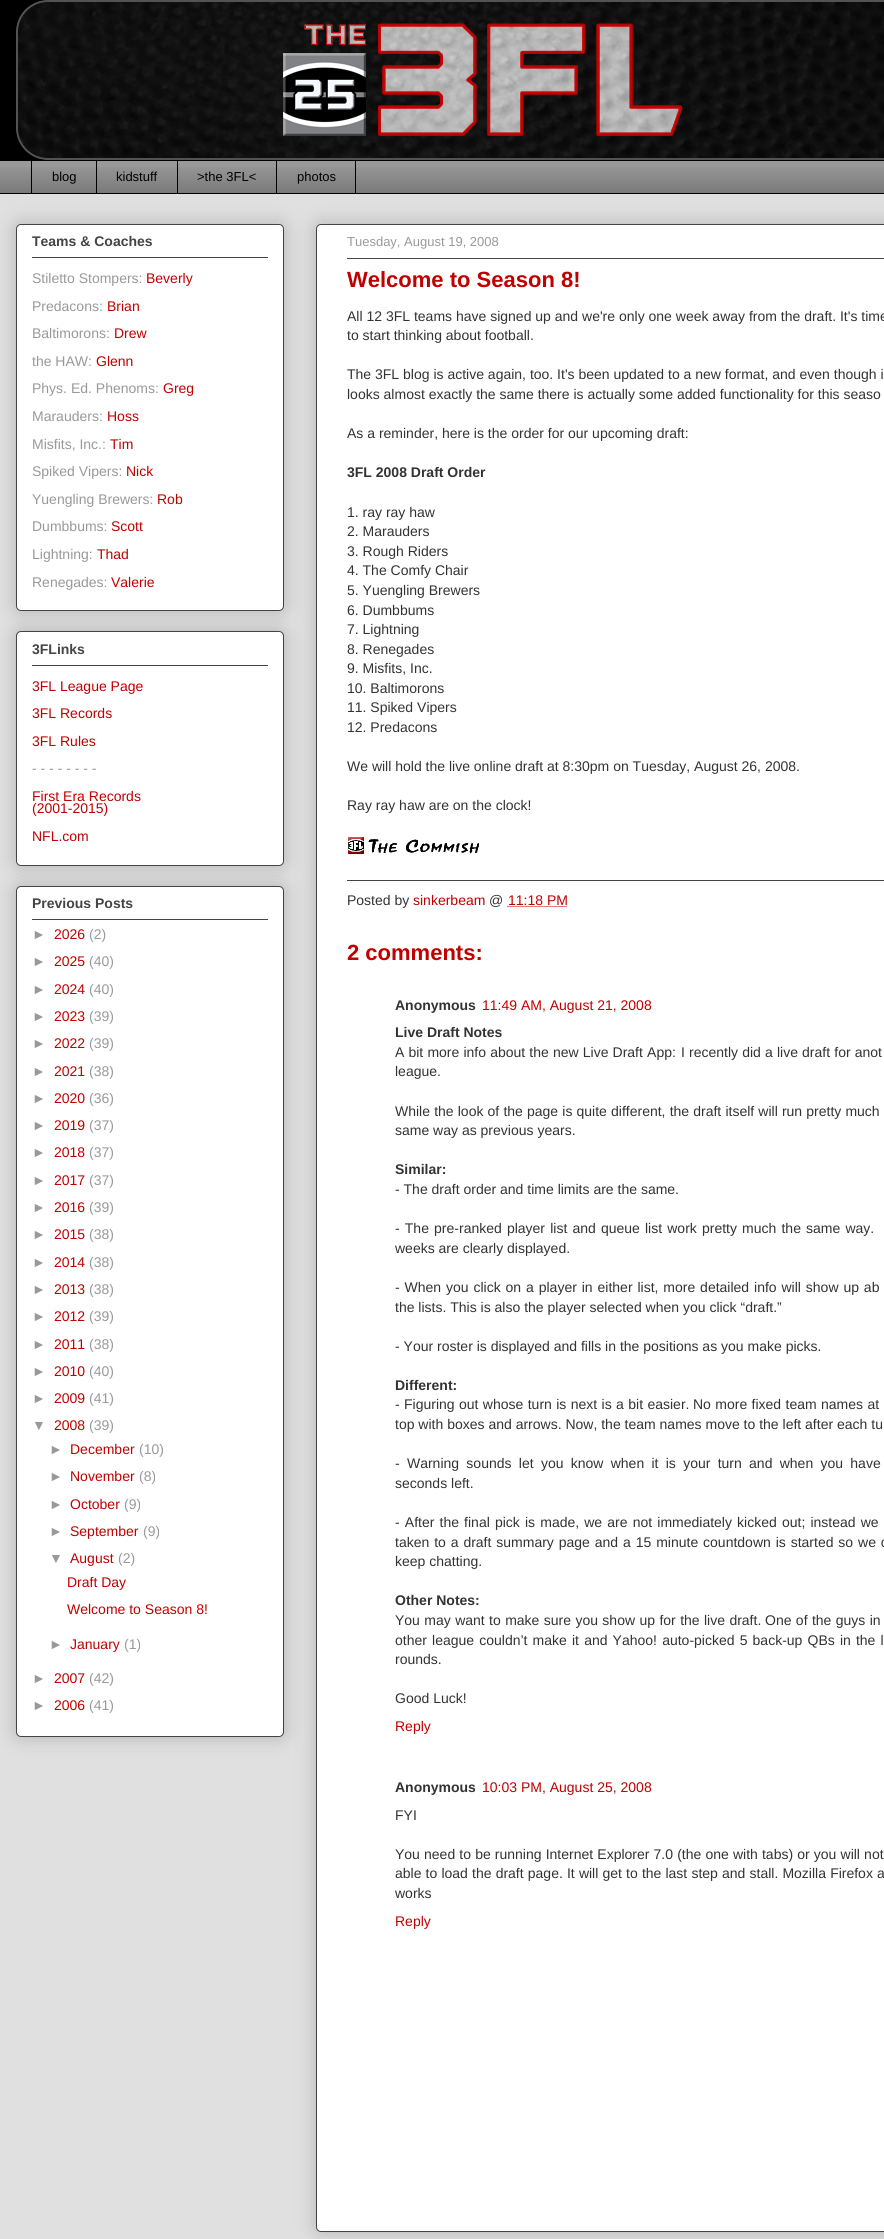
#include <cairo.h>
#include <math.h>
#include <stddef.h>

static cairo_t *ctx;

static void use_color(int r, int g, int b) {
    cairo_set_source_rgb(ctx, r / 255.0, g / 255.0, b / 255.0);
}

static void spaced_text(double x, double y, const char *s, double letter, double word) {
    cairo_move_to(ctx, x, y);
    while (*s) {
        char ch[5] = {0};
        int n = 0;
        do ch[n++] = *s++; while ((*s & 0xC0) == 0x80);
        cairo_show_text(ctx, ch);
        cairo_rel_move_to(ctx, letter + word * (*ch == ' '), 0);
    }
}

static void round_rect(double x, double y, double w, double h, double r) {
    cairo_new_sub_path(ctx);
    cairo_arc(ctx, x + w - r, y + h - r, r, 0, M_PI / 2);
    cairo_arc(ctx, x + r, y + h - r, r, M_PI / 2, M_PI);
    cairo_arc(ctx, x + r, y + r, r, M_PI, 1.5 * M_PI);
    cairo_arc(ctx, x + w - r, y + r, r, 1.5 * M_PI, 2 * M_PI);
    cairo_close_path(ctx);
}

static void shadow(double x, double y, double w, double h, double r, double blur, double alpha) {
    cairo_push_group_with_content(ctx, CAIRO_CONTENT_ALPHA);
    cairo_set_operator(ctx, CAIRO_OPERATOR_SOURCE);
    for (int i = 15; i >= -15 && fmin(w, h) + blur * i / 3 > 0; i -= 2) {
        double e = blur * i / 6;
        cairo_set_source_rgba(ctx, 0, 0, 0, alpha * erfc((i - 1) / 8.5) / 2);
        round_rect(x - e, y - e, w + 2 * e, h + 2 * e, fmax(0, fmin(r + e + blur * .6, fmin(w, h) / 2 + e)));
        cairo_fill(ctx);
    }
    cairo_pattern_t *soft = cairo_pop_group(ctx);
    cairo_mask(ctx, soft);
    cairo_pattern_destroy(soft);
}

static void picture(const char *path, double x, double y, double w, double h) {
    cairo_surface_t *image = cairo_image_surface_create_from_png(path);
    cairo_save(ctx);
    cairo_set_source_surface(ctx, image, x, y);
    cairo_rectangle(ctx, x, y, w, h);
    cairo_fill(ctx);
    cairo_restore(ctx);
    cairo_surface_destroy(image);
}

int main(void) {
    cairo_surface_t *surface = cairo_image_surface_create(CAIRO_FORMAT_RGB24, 884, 2239);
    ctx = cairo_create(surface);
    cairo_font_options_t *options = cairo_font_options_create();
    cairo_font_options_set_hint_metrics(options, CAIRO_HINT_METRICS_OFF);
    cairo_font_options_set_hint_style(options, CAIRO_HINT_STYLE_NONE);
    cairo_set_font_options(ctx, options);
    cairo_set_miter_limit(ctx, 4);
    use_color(224, 224, 224);
    cairo_paint(ctx);
    use_color(0, 0, 0);
    cairo_rectangle(ctx, 0, 0, 16, 160);
    cairo_fill(ctx);
    picture("img1.png", 16, 0, 868, 160);
    use_color(153, 153, 153);
    cairo_rectangle(ctx, 0, 161, 884, 32);
    cairo_fill(ctx);
    picture("img2.png", 0, 167, 884, 26);
    use_color(0, 0, 0);
    cairo_rectangle(ctx, 0, 160, 884, 1);
    cairo_fill(ctx);
    cairo_rectangle(ctx, 31, 160, 1, 34);
    cairo_fill(ctx);
    cairo_select_font_face(ctx, "Liberation Sans", CAIRO_FONT_SLANT_NORMAL, CAIRO_FONT_WEIGHT_NORMAL);
    cairo_set_font_size(ctx, 13);
    cairo_move_to(ctx, 52, 181);
    cairo_show_text(ctx, "blog");
    cairo_rectangle(ctx, 96, 160, 1, 34);
    cairo_fill(ctx);
    cairo_move_to(ctx, 116, 181);
    cairo_show_text(ctx, "kidstuff");
    cairo_rectangle(ctx, 177, 160, 1, 34);
    cairo_fill(ctx);
    cairo_move_to(ctx, 197, 181);
    cairo_show_text(ctx, ">the 3FL<");
    cairo_rectangle(ctx, 276.5, 160.5, 79, 33);
    cairo_set_line_width(ctx, 1);
    cairo_stroke(ctx);
    cairo_move_to(ctx, 297, 181);
    cairo_show_text(ctx, "photos");
    cairo_rectangle(ctx, 0, 193, 884, 1);
    cairo_fill(ctx);
    use_color(0, 0, 0);
    shadow(16, 224, 268, 387, 5, 10, 0.2);
    use_color(255, 255, 255);
    round_rect(16.5, 224.5, 267, 386, 4.5);
    cairo_fill_preserve(ctx);
    use_color(68, 68, 68);
    cairo_stroke(ctx);
    cairo_select_font_face(ctx, "Liberation Sans", CAIRO_FONT_SLANT_NORMAL, CAIRO_FONT_WEIGHT_BOLD);
    cairo_set_font_size(ctx, 14);
    cairo_move_to(ctx, 32, 246);
    cairo_show_text(ctx, "Teams & Coaches");
    cairo_rectangle(ctx, 32, 257, 236, 1);
    cairo_fill(ctx);
    cairo_select_font_face(ctx, "Liberation Sans", CAIRO_FONT_SLANT_NORMAL, CAIRO_FONT_WEIGHT_NORMAL);
    use_color(153, 153, 153);
    cairo_move_to(ctx, 32, 283);
    cairo_show_text(ctx, "Stiletto Stompers:");
    use_color(193, 0, 0);
    cairo_move_to(ctx, 146, 283);
    cairo_show_text(ctx, "Beverly");
    use_color(153, 153, 153);
    cairo_move_to(ctx, 32, 311);
    cairo_show_text(ctx, "Predacons:");
    use_color(193, 0, 0);
    cairo_move_to(ctx, 107, 311);
    cairo_show_text(ctx, "Brian");
    use_color(153, 153, 153);
    cairo_move_to(ctx, 32, 338);
    cairo_show_text(ctx, "Baltimorons:");
    use_color(193, 0, 0);
    cairo_move_to(ctx, 114, 338);
    cairo_show_text(ctx, "Drew");
    use_color(153, 153, 153);
    cairo_move_to(ctx, 32, 366);
    cairo_show_text(ctx, "the HAW:");
    use_color(193, 0, 0);
    cairo_move_to(ctx, 96, 366);
    cairo_show_text(ctx, "Glenn");
    use_color(153, 153, 153);
    cairo_move_to(ctx, 32, 393);
    cairo_show_text(ctx, "Phys. Ed. Phenoms:");
    use_color(193, 0, 0);
    cairo_move_to(ctx, 163, 393);
    cairo_show_text(ctx, "Greg");
    use_color(153, 153, 153);
    cairo_move_to(ctx, 32, 421);
    cairo_show_text(ctx, "Marauders:");
    use_color(193, 0, 0);
    cairo_move_to(ctx, 107, 421);
    cairo_show_text(ctx, "Hoss");
    use_color(153, 153, 153);
    cairo_move_to(ctx, 32, 449);
    cairo_show_text(ctx, "Misfits, Inc.:");
    use_color(193, 0, 0);
    cairo_move_to(ctx, 110, 449);
    cairo_show_text(ctx, "Tim");
    use_color(153, 153, 153);
    cairo_move_to(ctx, 32, 476);
    cairo_show_text(ctx, "Spiked Vipers:");
    use_color(193, 0, 0);
    cairo_move_to(ctx, 126, 476);
    cairo_show_text(ctx, "Nick");
    use_color(153, 153, 153);
    cairo_move_to(ctx, 32, 504);
    cairo_show_text(ctx, "Yuengling Brewers:");
    use_color(193, 0, 0);
    cairo_move_to(ctx, 157, 504);
    cairo_show_text(ctx, "Rob");
    use_color(153, 153, 153);
    cairo_move_to(ctx, 32, 531);
    cairo_show_text(ctx, "Dumbbums:");
    use_color(193, 0, 0);
    cairo_move_to(ctx, 111, 531);
    cairo_show_text(ctx, "Scott");
    use_color(153, 153, 153);
    cairo_move_to(ctx, 32, 559);
    cairo_show_text(ctx, "Lightning:");
    use_color(193, 0, 0);
    cairo_move_to(ctx, 97, 559);
    cairo_show_text(ctx, "Thad");
    use_color(153, 153, 153);
    cairo_move_to(ctx, 32, 587);
    cairo_show_text(ctx, "Renegades:");
    use_color(193, 0, 0);
    cairo_move_to(ctx, 111, 587);
    cairo_show_text(ctx, "Valerie");
    use_color(0, 0, 0);
    shadow(16, 631, 268, 235, 5, 10, 0.2);
    use_color(255, 255, 255);
    round_rect(16.5, 631.5, 267, 234, 4.5);
    cairo_fill_preserve(ctx);
    use_color(68, 68, 68);
    cairo_stroke(ctx);
    cairo_select_font_face(ctx, "Liberation Sans", CAIRO_FONT_SLANT_NORMAL, CAIRO_FONT_WEIGHT_BOLD);
    cairo_move_to(ctx, 32, 654);
    cairo_show_text(ctx, "3FLinks");
    cairo_rectangle(ctx, 32, 665, 236, 1);
    cairo_fill(ctx);
    cairo_select_font_face(ctx, "Liberation Sans", CAIRO_FONT_SLANT_NORMAL, CAIRO_FONT_WEIGHT_NORMAL);
    use_color(193, 0, 0);
    cairo_move_to(ctx, 32, 691);
    cairo_show_text(ctx, "3FL League Page");
    cairo_move_to(ctx, 32, 718);
    cairo_show_text(ctx, "3FL Records");
    cairo_move_to(ctx, 32, 746);
    cairo_show_text(ctx, "3FL Rules");
    use_color(153, 153, 153);
    cairo_move_to(ctx, 32, 773);
    cairo_show_text(ctx, "- - - - - - - -");
    use_color(193, 0, 0);
    cairo_move_to(ctx, 32, 801);
    cairo_show_text(ctx, "First Era Records");
    cairo_move_to(ctx, 32, 813);
    cairo_show_text(ctx, "(2001-2015)");
    cairo_move_to(ctx, 32, 841);
    cairo_show_text(ctx, "NFL.com");
    use_color(0, 0, 0);
    shadow(16, 886, 268, 851, 5, 10, 0.2);
    use_color(255, 255, 255);
    round_rect(16.5, 886.5, 267, 850, 4.5);
    cairo_fill_preserve(ctx);
    use_color(68, 68, 68);
    cairo_stroke(ctx);
    cairo_select_font_face(ctx, "Liberation Sans", CAIRO_FONT_SLANT_NORMAL, CAIRO_FONT_WEIGHT_BOLD);
    cairo_move_to(ctx, 32, 908);
    cairo_show_text(ctx, "Previous Posts");
    cairo_rectangle(ctx, 32, 919, 236, 1);
    cairo_fill(ctx);
    cairo_select_font_face(ctx, "Liberation Sans", CAIRO_FONT_SLANT_NORMAL, CAIRO_FONT_WEIGHT_NORMAL);
    use_color(153, 153, 153);
    cairo_move_to(ctx, 32, 939);
    cairo_show_text(ctx, "►");
    use_color(193, 0, 0);
    cairo_move_to(ctx, 54, 939);
    cairo_show_text(ctx, "2026");
    use_color(153, 153, 153);
    cairo_move_to(ctx, 89, 939);
    cairo_show_text(ctx, "(2)");
    cairo_move_to(ctx, 32, 966);
    cairo_show_text(ctx, "►");
    use_color(193, 0, 0);
    cairo_move_to(ctx, 54, 966);
    cairo_show_text(ctx, "2025");
    use_color(153, 153, 153);
    cairo_move_to(ctx, 89, 966);
    cairo_show_text(ctx, "(40)");
    cairo_move_to(ctx, 32, 994);
    cairo_show_text(ctx, "►");
    use_color(193, 0, 0);
    cairo_move_to(ctx, 54, 994);
    cairo_show_text(ctx, "2024");
    use_color(153, 153, 153);
    cairo_move_to(ctx, 89, 994);
    cairo_show_text(ctx, "(40)");
    cairo_move_to(ctx, 32, 1021);
    cairo_show_text(ctx, "►");
    use_color(193, 0, 0);
    cairo_move_to(ctx, 54, 1021);
    cairo_show_text(ctx, "2023");
    use_color(153, 153, 153);
    cairo_move_to(ctx, 89, 1021);
    cairo_show_text(ctx, "(39)");
    cairo_move_to(ctx, 32, 1048);
    cairo_show_text(ctx, "►");
    use_color(193, 0, 0);
    cairo_move_to(ctx, 54, 1048);
    cairo_show_text(ctx, "2022");
    use_color(153, 153, 153);
    cairo_move_to(ctx, 89, 1048);
    cairo_show_text(ctx, "(39)");
    cairo_move_to(ctx, 32, 1076);
    cairo_show_text(ctx, "►");
    use_color(193, 0, 0);
    cairo_move_to(ctx, 54, 1076);
    cairo_show_text(ctx, "2021");
    use_color(153, 153, 153);
    cairo_move_to(ctx, 89, 1076);
    cairo_show_text(ctx, "(38)");
    cairo_move_to(ctx, 32, 1103);
    cairo_show_text(ctx, "►");
    use_color(193, 0, 0);
    cairo_move_to(ctx, 54, 1103);
    cairo_show_text(ctx, "2020");
    use_color(153, 153, 153);
    cairo_move_to(ctx, 89, 1103);
    cairo_show_text(ctx, "(36)");
    cairo_move_to(ctx, 32, 1130);
    cairo_show_text(ctx, "►");
    use_color(193, 0, 0);
    cairo_move_to(ctx, 54, 1130);
    cairo_show_text(ctx, "2019");
    use_color(153, 153, 153);
    cairo_move_to(ctx, 89, 1130);
    cairo_show_text(ctx, "(37)");
    cairo_move_to(ctx, 32, 1157);
    cairo_show_text(ctx, "►");
    use_color(193, 0, 0);
    cairo_move_to(ctx, 54, 1157);
    cairo_show_text(ctx, "2018");
    use_color(153, 153, 153);
    cairo_move_to(ctx, 89, 1157);
    cairo_show_text(ctx, "(37)");
    cairo_move_to(ctx, 32, 1185);
    cairo_show_text(ctx, "►");
    use_color(193, 0, 0);
    cairo_move_to(ctx, 54, 1185);
    cairo_show_text(ctx, "2017");
    use_color(153, 153, 153);
    cairo_move_to(ctx, 89, 1185);
    cairo_show_text(ctx, "(37)");
    cairo_move_to(ctx, 32, 1212);
    cairo_show_text(ctx, "►");
    use_color(193, 0, 0);
    cairo_move_to(ctx, 54, 1212);
    cairo_show_text(ctx, "2016");
    use_color(153, 153, 153);
    cairo_move_to(ctx, 89, 1212);
    cairo_show_text(ctx, "(39)");
    cairo_move_to(ctx, 32, 1239);
    cairo_show_text(ctx, "►");
    use_color(193, 0, 0);
    cairo_move_to(ctx, 54, 1239);
    cairo_show_text(ctx, "2015");
    use_color(153, 153, 153);
    cairo_move_to(ctx, 89, 1239);
    cairo_show_text(ctx, "(38)");
    cairo_move_to(ctx, 32, 1267);
    cairo_show_text(ctx, "►");
    use_color(193, 0, 0);
    cairo_move_to(ctx, 54, 1267);
    cairo_show_text(ctx, "2014");
    use_color(153, 153, 153);
    cairo_move_to(ctx, 89, 1267);
    cairo_show_text(ctx, "(38)");
    cairo_move_to(ctx, 32, 1294);
    cairo_show_text(ctx, "►");
    use_color(193, 0, 0);
    cairo_move_to(ctx, 54, 1294);
    cairo_show_text(ctx, "2013");
    use_color(153, 153, 153);
    cairo_move_to(ctx, 89, 1294);
    cairo_show_text(ctx, "(38)");
    cairo_move_to(ctx, 32, 1321);
    cairo_show_text(ctx, "►");
    use_color(193, 0, 0);
    cairo_move_to(ctx, 54, 1321);
    cairo_show_text(ctx, "2012");
    use_color(153, 153, 153);
    cairo_move_to(ctx, 89, 1321);
    cairo_show_text(ctx, "(39)");
    cairo_move_to(ctx, 32, 1349);
    cairo_show_text(ctx, "►");
    use_color(193, 0, 0);
    cairo_move_to(ctx, 54, 1349);
    cairo_show_text(ctx, "2011");
    use_color(153, 153, 153);
    cairo_move_to(ctx, 89, 1349);
    cairo_show_text(ctx, "(38)");
    cairo_move_to(ctx, 32, 1376);
    cairo_show_text(ctx, "►");
    use_color(193, 0, 0);
    cairo_move_to(ctx, 54, 1376);
    cairo_show_text(ctx, "2010");
    use_color(153, 153, 153);
    cairo_move_to(ctx, 89, 1376);
    cairo_show_text(ctx, "(40)");
    cairo_move_to(ctx, 32, 1403);
    cairo_show_text(ctx, "►");
    use_color(193, 0, 0);
    cairo_move_to(ctx, 54, 1403);
    cairo_show_text(ctx, "2009");
    use_color(153, 153, 153);
    cairo_move_to(ctx, 89, 1403);
    cairo_show_text(ctx, "(41)");
    cairo_move_to(ctx, 32, 1430);
    cairo_show_text(ctx, "▼");
    use_color(193, 0, 0);
    cairo_move_to(ctx, 54, 1430);
    cairo_show_text(ctx, "2008");
    use_color(153, 153, 153);
    cairo_move_to(ctx, 89, 1430);
    cairo_show_text(ctx, "(39)");
    cairo_move_to(ctx, 49, 1454);
    cairo_show_text(ctx, "►");
    use_color(193, 0, 0);
    cairo_move_to(ctx, 70, 1454);
    cairo_show_text(ctx, "December");
    use_color(153, 153, 153);
    cairo_move_to(ctx, 139, 1454);
    cairo_show_text(ctx, "(10)");
    cairo_move_to(ctx, 49, 1481);
    cairo_show_text(ctx, "►");
    use_color(193, 0, 0);
    cairo_move_to(ctx, 70, 1481);
    cairo_show_text(ctx, "November");
    use_color(153, 153, 153);
    cairo_move_to(ctx, 139, 1481);
    cairo_show_text(ctx, "(8)");
    cairo_move_to(ctx, 49, 1509);
    cairo_show_text(ctx, "►");
    use_color(193, 0, 0);
    cairo_move_to(ctx, 70, 1509);
    cairo_show_text(ctx, "October");
    use_color(153, 153, 153);
    cairo_move_to(ctx, 124, 1509);
    cairo_show_text(ctx, "(9)");
    cairo_move_to(ctx, 49, 1536);
    cairo_show_text(ctx, "►");
    use_color(193, 0, 0);
    cairo_move_to(ctx, 70, 1536);
    cairo_show_text(ctx, "September");
    use_color(153, 153, 153);
    cairo_move_to(ctx, 143, 1536);
    cairo_show_text(ctx, "(9)");
    cairo_move_to(ctx, 49, 1563);
    cairo_show_text(ctx, "▼");
    use_color(193, 0, 0);
    cairo_move_to(ctx, 70, 1563);
    cairo_show_text(ctx, "August");
    use_color(153, 153, 153);
    cairo_move_to(ctx, 118, 1563);
    cairo_show_text(ctx, "(2)");
    use_color(193, 0, 0);
    cairo_move_to(ctx, 67, 1587);
    cairo_show_text(ctx, "Draft Day");
    cairo_move_to(ctx, 67, 1614);
    cairo_show_text(ctx, "Welcome to Season 8!");
    use_color(153, 153, 153);
    cairo_move_to(ctx, 49, 1649);
    cairo_show_text(ctx, "►");
    use_color(193, 0, 0);
    cairo_move_to(ctx, 70, 1649);
    cairo_show_text(ctx, "January");
    use_color(153, 153, 153);
    cairo_move_to(ctx, 124, 1649);
    cairo_show_text(ctx, "(1)");
    cairo_move_to(ctx, 32, 1683);
    cairo_show_text(ctx, "►");
    use_color(193, 0, 0);
    cairo_move_to(ctx, 54, 1683);
    cairo_show_text(ctx, "2007");
    use_color(153, 153, 153);
    cairo_move_to(ctx, 89, 1683);
    cairo_show_text(ctx, "(42)");
    cairo_move_to(ctx, 32, 1710);
    cairo_show_text(ctx, "►");
    use_color(193, 0, 0);
    cairo_move_to(ctx, 54, 1710);
    cairo_show_text(ctx, "2006");
    use_color(153, 153, 153);
    cairo_move_to(ctx, 89, 1710);
    cairo_show_text(ctx, "(41)");
    use_color(0, 0, 0);
    shadow(316, 224, 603, 2008, 5, 10, 0.2);
    use_color(255, 255, 255);
    round_rect(316.5, 224.5, 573, 2007, 4.5);
    cairo_fill_preserve(ctx);
    use_color(68, 68, 68);
    cairo_stroke(ctx);
    cairo_set_font_size(ctx, 13);
    use_color(153, 153, 153);
    cairo_move_to(ctx, 347, 246);
    cairo_show_text(ctx, "Tuesday, August 19, 2008");
    use_color(68, 68, 68);
    cairo_rectangle(ctx, 347, 258, 537, 1);
    cairo_fill(ctx);
    cairo_select_font_face(ctx, "Liberation Sans", CAIRO_FONT_SLANT_NORMAL, CAIRO_FONT_WEIGHT_BOLD);
    cairo_set_font_size(ctx, 22);
    use_color(193, 0, 0);
    cairo_move_to(ctx, 347, 287);
    cairo_show_text(ctx, "Welcome to Season 8!");
    cairo_select_font_face(ctx, "Liberation Sans", CAIRO_FONT_SLANT_NORMAL, CAIRO_FONT_WEIGHT_NORMAL);
    cairo_set_font_size(ctx, 14);
    use_color(51, 51, 51);
    cairo_move_to(ctx, 347, 321);
    cairo_show_text(ctx, "All 12 3FL teams have signed up and we're only one week away from the draft. It's time");
    cairo_move_to(ctx, 347, 340);
    cairo_show_text(ctx, "to start thinking about football.");
    cairo_move_to(ctx, 347, 379);
    cairo_show_text(ctx, "The 3FL blog is active again, too. It's been updated to a new format, and even though i");
    cairo_move_to(ctx, 347, 399);
    cairo_show_text(ctx, "looks almost exactly the same there is actually some added functionality for this seaso");
    cairo_move_to(ctx, 347, 438);
    cairo_show_text(ctx, "As a reminder, here is the order for our upcoming draft:");
    cairo_select_font_face(ctx, "Liberation Sans", CAIRO_FONT_SLANT_NORMAL, CAIRO_FONT_WEIGHT_BOLD);
    cairo_move_to(ctx, 347, 477);
    cairo_show_text(ctx, "3FL 2008 Draft Order");
    cairo_select_font_face(ctx, "Liberation Sans", CAIRO_FONT_SLANT_NORMAL, CAIRO_FONT_WEIGHT_NORMAL);
    cairo_move_to(ctx, 347, 517);
    cairo_show_text(ctx, "1. ray ray haw");
    cairo_move_to(ctx, 347, 536);
    cairo_show_text(ctx, "2. Marauders");
    cairo_move_to(ctx, 347, 556);
    cairo_show_text(ctx, "3. Rough Riders");
    cairo_move_to(ctx, 347, 575);
    cairo_show_text(ctx, "4. The Comfy Chair");
    cairo_move_to(ctx, 347, 595);
    cairo_show_text(ctx, "5. Yuengling Brewers");
    cairo_move_to(ctx, 347, 615);
    cairo_show_text(ctx, "6. Dumbbums");
    cairo_move_to(ctx, 347, 634);
    cairo_show_text(ctx, "7. Lightning");
    cairo_move_to(ctx, 347, 654);
    cairo_show_text(ctx, "8. Renegades");
    cairo_move_to(ctx, 347, 673);
    cairo_show_text(ctx, "9. Misfits, Inc.");
    cairo_move_to(ctx, 347, 693);
    cairo_show_text(ctx, "10. Baltimorons");
    cairo_move_to(ctx, 347, 712);
    cairo_show_text(ctx, "11. Spiked Vipers");
    cairo_move_to(ctx, 347, 732);
    cairo_show_text(ctx, "12. Predacons");
    cairo_move_to(ctx, 347, 771);
    cairo_show_text(ctx, "We will hold the live online draft at 8:30pm on Tuesday, August 26, 2008.");
    cairo_move_to(ctx, 347, 810);
    cairo_show_text(ctx, "Ray ray haw are on the clock!");
    picture("img3.png", 348, 837, 131, 17);
    use_color(68, 68, 68);
    cairo_rectangle(ctx, 347, 880, 537, 1);
    cairo_fill(ctx);
    use_color(51, 51, 51);
    cairo_move_to(ctx, 347, 905);
    cairo_show_text(ctx, "Posted by");
    use_color(193, 0, 0);
    cairo_move_to(ctx, 413, 905);
    cairo_show_text(ctx, "sinkerbeam");
    use_color(51, 51, 51);
    cairo_move_to(ctx, 489, 905);
    cairo_show_text(ctx, "@");
    use_color(193, 0, 0);
    cairo_move_to(ctx, 508, 905);
    cairo_show_text(ctx, "11:18 PM");
    cairo_new_path(ctx);
    cairo_move_to(ctx, 507.5, 906.5);
    cairo_line_to(ctx, 567.5, 906.5);
    cairo_set_dash(ctx, (double[]){1, 1}, 2, 0);
    cairo_stroke(ctx);
    cairo_select_font_face(ctx, "Liberation Sans", CAIRO_FONT_SLANT_NORMAL, CAIRO_FONT_WEIGHT_BOLD);
    cairo_set_font_size(ctx, 22);
    cairo_move_to(ctx, 347, 960);
    cairo_show_text(ctx, "2 comments:");
    cairo_set_font_size(ctx, 14);
    use_color(51, 51, 51);
    cairo_move_to(ctx, 395, 1010);
    cairo_show_text(ctx, "Anonymous");
    cairo_select_font_face(ctx, "Liberation Sans", CAIRO_FONT_SLANT_NORMAL, CAIRO_FONT_WEIGHT_NORMAL);
    use_color(193, 0, 0);
    cairo_move_to(ctx, 482, 1010);
    cairo_show_text(ctx, "11:49 AM, August 21, 2008");
    cairo_select_font_face(ctx, "Liberation Sans", CAIRO_FONT_SLANT_NORMAL, CAIRO_FONT_WEIGHT_BOLD);
    use_color(51, 51, 51);
    cairo_move_to(ctx, 395, 1037);
    cairo_show_text(ctx, "Live Draft Notes");
    cairo_select_font_face(ctx, "Liberation Sans", CAIRO_FONT_SLANT_NORMAL, CAIRO_FONT_WEIGHT_NORMAL);
    spaced_text(395, 1057, "A bit more info about the new Live Draft App:", 0, 0.25);
    spaced_text(681, 1057, "I recently did a live draft for anot", 0, 0.25);
    cairo_move_to(ctx, 395, 1076);
    cairo_show_text(ctx, "league.");
    spaced_text(395, 1116, "While the look of the page is quite different, the draft itself will run pretty much", 0, 0.25);
    cairo_move_to(ctx, 395, 1135);
    cairo_show_text(ctx, "same way as previous years.");
    cairo_select_font_face(ctx, "Liberation Sans", CAIRO_FONT_SLANT_NORMAL, CAIRO_FONT_WEIGHT_BOLD);
    cairo_move_to(ctx, 395, 1174);
    cairo_show_text(ctx, "Similar:");
    cairo_select_font_face(ctx, "Liberation Sans", CAIRO_FONT_SLANT_NORMAL, CAIRO_FONT_WEIGHT_NORMAL);
    cairo_move_to(ctx, 395, 1194);
    cairo_show_text(ctx, "- The draft order and time limits are the same.");
    spaced_text(395, 1233, "- The pre-ranked player list and queue list work pretty much the same way.", 0, 1.25);
    cairo_move_to(ctx, 395, 1253);
    cairo_show_text(ctx, "weeks are clearly displayed.");
    spaced_text(395, 1292, "- When you click on a player in either list, more detailed info will show up ab", 0, 1);
    cairo_move_to(ctx, 395, 1312);
    cairo_show_text(ctx, "the lists. This is also the player selected when you click “draft.”");
    cairo_move_to(ctx, 395, 1351);
    cairo_show_text(ctx, "- Your roster is displayed and fills in the positions as you make picks.");
    cairo_select_font_face(ctx, "Liberation Sans", CAIRO_FONT_SLANT_NORMAL, CAIRO_FONT_WEIGHT_BOLD);
    cairo_move_to(ctx, 395, 1390);
    cairo_show_text(ctx, "Different:");
    cairo_select_font_face(ctx, "Liberation Sans", CAIRO_FONT_SLANT_NORMAL, CAIRO_FONT_WEIGHT_NORMAL);
    spaced_text(395, 1409, "- Figuring out whose turn is next is a bit easier.", 0, 0.5);
    spaced_text(693, 1409, "No more fixed team names at", 0, 0.5);
    cairo_move_to(ctx, 395, 1429);
    cairo_show_text(ctx, "top with boxes and arrows. Now, the team names move to the left after each tu");
    spaced_text(395, 1468, "- Warning sounds let you know when it is your turn and when you have", 0, 3.4);
    cairo_move_to(ctx, 395, 1488);
    cairo_show_text(ctx, "seconds left.");
    spaced_text(395, 1527, "- After the final pick is made, we are not immediately kicked out; instead we", 0, 1.25);
    spaced_text(395, 1547, "taken to a draft summary page and a 15 minute countdown is started so we c", 0, 1);
    cairo_move_to(ctx, 395, 1566);
    cairo_show_text(ctx, "keep chatting.");
    cairo_select_font_face(ctx, "Liberation Sans", CAIRO_FONT_SLANT_NORMAL, CAIRO_FONT_WEIGHT_BOLD);
    cairo_move_to(ctx, 395, 1605);
    cairo_show_text(ctx, "Other Notes:");
    cairo_select_font_face(ctx, "Liberation Sans", CAIRO_FONT_SLANT_NORMAL, CAIRO_FONT_WEIGHT_NORMAL);
    spaced_text(395, 1625, "You may want to make sure you show up for the live draft.", 0, 0.5);
    spaced_text(765, 1625, "One of the guys in", 0, 0.5);
    spaced_text(395, 1645, "other league couldn’t make it and Yahoo! auto-picked 5 back-up QBs in the l", 0, 1.25);
    cairo_move_to(ctx, 395, 1664);
    cairo_show_text(ctx, "rounds.");
    cairo_move_to(ctx, 395, 1703);
    cairo_show_text(ctx, "Good Luck!");
    use_color(193, 0, 0);
    cairo_move_to(ctx, 395, 1731);
    cairo_show_text(ctx, "Reply");
    cairo_select_font_face(ctx, "Liberation Sans", CAIRO_FONT_SLANT_NORMAL, CAIRO_FONT_WEIGHT_BOLD);
    use_color(51, 51, 51);
    cairo_move_to(ctx, 395, 1792);
    cairo_show_text(ctx, "Anonymous");
    cairo_select_font_face(ctx, "Liberation Sans", CAIRO_FONT_SLANT_NORMAL, CAIRO_FONT_WEIGHT_NORMAL);
    use_color(193, 0, 0);
    cairo_move_to(ctx, 482, 1792);
    cairo_show_text(ctx, "10:03 PM, August 25, 2008");
    use_color(51, 51, 51);
    cairo_move_to(ctx, 395, 1820);
    cairo_show_text(ctx, "FYI");
    spaced_text(395, 1859, "You need to be running Internet Explorer 7.0 (the one with tabs) or you will not", 0, 0.25);
    spaced_text(395, 1878, "able to load the draft page. It will get to the last step and stall. Mozilla Firefox a", 0, 0.25);
    cairo_move_to(ctx, 395, 1898);
    cairo_show_text(ctx, "works");
    use_color(193, 0, 0);
    cairo_move_to(ctx, 395, 1926);
    cairo_show_text(ctx, "Reply");
    cairo_surface_write_to_png(surface, "result.png");
    cairo_font_options_destroy(options);
    cairo_destroy(ctx);
    cairo_surface_destroy(surface);
    return 0;
}
